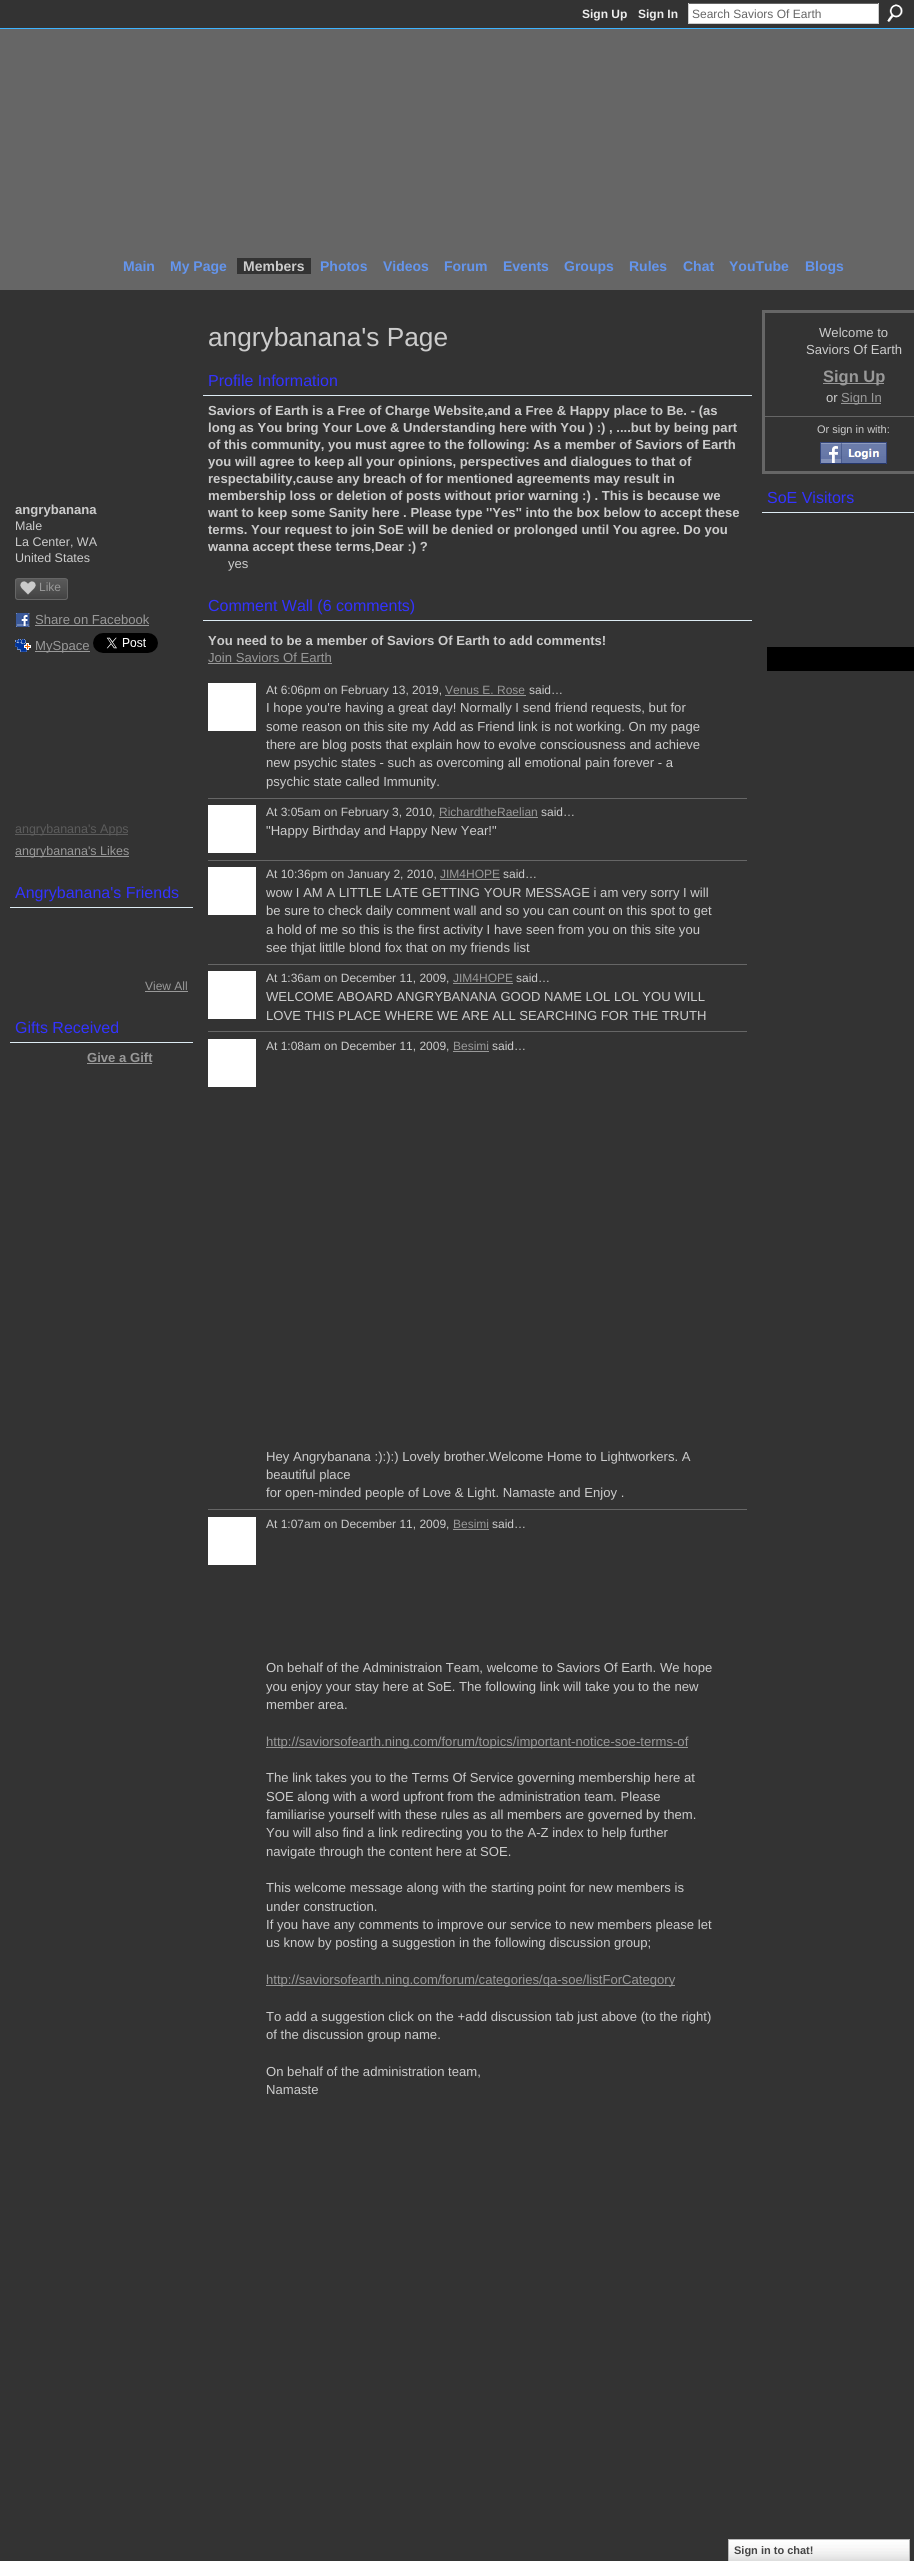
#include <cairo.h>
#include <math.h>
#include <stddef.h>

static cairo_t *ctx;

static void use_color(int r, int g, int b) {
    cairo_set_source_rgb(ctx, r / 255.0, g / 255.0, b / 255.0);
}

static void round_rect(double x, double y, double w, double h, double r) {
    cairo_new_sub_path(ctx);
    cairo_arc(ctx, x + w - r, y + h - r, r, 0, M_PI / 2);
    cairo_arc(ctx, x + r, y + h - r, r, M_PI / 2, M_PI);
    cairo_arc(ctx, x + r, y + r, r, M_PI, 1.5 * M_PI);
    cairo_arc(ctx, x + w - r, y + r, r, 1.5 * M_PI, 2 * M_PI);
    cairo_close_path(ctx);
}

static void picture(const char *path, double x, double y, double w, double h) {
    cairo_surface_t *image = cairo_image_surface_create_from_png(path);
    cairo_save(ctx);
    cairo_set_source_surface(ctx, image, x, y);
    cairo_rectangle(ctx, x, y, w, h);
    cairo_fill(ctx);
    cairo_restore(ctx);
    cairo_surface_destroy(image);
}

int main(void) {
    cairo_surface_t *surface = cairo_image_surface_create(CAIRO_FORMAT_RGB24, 914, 2561);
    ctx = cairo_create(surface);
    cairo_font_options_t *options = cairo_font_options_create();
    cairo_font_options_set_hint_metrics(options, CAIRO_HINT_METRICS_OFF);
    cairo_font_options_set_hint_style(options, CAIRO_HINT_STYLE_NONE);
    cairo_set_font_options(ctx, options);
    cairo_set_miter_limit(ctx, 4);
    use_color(102, 102, 102);
    cairo_paint(ctx);
    use_color(51, 51, 51);
    cairo_rectangle(ctx, 0, 0, 914, 28);
    cairo_fill(ctx);
    use_color(62, 180, 255);
    cairo_rectangle(ctx, 0, 28, 914, 1);
    cairo_fill(ctx);
    cairo_select_font_face(ctx, "Liberation Sans", CAIRO_FONT_SLANT_NORMAL, CAIRO_FONT_WEIGHT_BOLD);
    cairo_set_font_size(ctx, 12);
    use_color(238, 238, 238);
    cairo_move_to(ctx, 582, 18);
    cairo_show_text(ctx, "Sign Up");
    cairo_move_to(ctx, 638, 18);
    cairo_show_text(ctx, "Sign In");
    use_color(255, 255, 255);
    cairo_rectangle(ctx, 689, 4, 189, 19);
    cairo_fill(ctx);
    use_color(102, 102, 102);
    cairo_rectangle(ctx, 688, 3, 191, 1);
    cairo_fill(ctx);
    use_color(204, 204, 204);
    cairo_rectangle(ctx, 878, 3, 1, 21);
    cairo_fill(ctx);
    cairo_rectangle(ctx, 688, 23, 191, 1);
    cairo_fill(ctx);
    cairo_rectangle(ctx, 688, 3, 1, 21);
    cairo_fill(ctx);
    cairo_select_font_face(ctx, "Liberation Sans", CAIRO_FONT_SLANT_NORMAL, CAIRO_FONT_WEIGHT_NORMAL);
    use_color(102, 102, 102);
    cairo_move_to(ctx, 692, 18);
    cairo_show_text(ctx, "Search Saviors Of Earth");
    picture("img1.png", 887, 4, 16, 18);
    cairo_select_font_face(ctx, "Liberation Sans", CAIRO_FONT_SLANT_NORMAL, CAIRO_FONT_WEIGHT_BOLD);
    cairo_set_font_size(ctx, 14);
    use_color(100, 149, 237);
    cairo_move_to(ctx, 123, 271);
    cairo_show_text(ctx, "Main");
    cairo_move_to(ctx, 170, 271);
    cairo_show_text(ctx, "My Page");
    use_color(51, 51, 51);
    cairo_rectangle(ctx, 237, 258, 74, 16);
    cairo_fill(ctx);
    use_color(204, 204, 204);
    cairo_move_to(ctx, 243, 271);
    cairo_show_text(ctx, "Members");
    use_color(100, 149, 237);
    cairo_move_to(ctx, 320, 271);
    cairo_show_text(ctx, "Photos");
    cairo_move_to(ctx, 383, 271);
    cairo_show_text(ctx, "Videos");
    cairo_move_to(ctx, 444, 271);
    cairo_show_text(ctx, "Forum");
    cairo_move_to(ctx, 503, 271);
    cairo_show_text(ctx, "Events");
    cairo_move_to(ctx, 564, 271);
    cairo_show_text(ctx, "Groups");
    cairo_move_to(ctx, 629, 271);
    cairo_show_text(ctx, "Rules");
    cairo_move_to(ctx, 683, 271);
    cairo_show_text(ctx, "Chat");
    cairo_move_to(ctx, 729, 271);
    cairo_show_text(ctx, "YouTube");
    cairo_move_to(ctx, 805, 271);
    cairo_show_text(ctx, "Blogs");
    use_color(51, 51, 51);
    cairo_rectangle(ctx, 0, 290, 914, 2271);
    cairo_fill(ctx);
    cairo_set_font_size(ctx, 13.1);
    use_color(204, 204, 204);
    cairo_move_to(ctx, 15, 514);
    cairo_show_text(ctx, "angrybanana");
    cairo_select_font_face(ctx, "Liberation Sans", CAIRO_FONT_SLANT_NORMAL, CAIRO_FONT_WEIGHT_NORMAL);
    cairo_set_font_size(ctx, 12.5);
    cairo_move_to(ctx, 15, 530);
    cairo_show_text(ctx, "Male");
    cairo_move_to(ctx, 15, 546);
    cairo_show_text(ctx, "La Center, WA");
    cairo_move_to(ctx, 15, 562);
    cairo_show_text(ctx, "United States");
    picture("img2.png", 15, 579, 53, 21);
    round_rect(15.5, 578.5, 52, 21, 2.5);
    use_color(102, 102, 102);
    cairo_set_line_width(ctx, 1);
    cairo_stroke(ctx);
    picture("img3.png", 20, 581, 16, 14);
    cairo_set_font_size(ctx, 12);
    use_color(153, 153, 153);
    cairo_move_to(ctx, 39, 591);
    cairo_show_text(ctx, "Like");
    picture("img4.png", 16, 613, 14, 14);
    cairo_set_font_size(ctx, 13.1);
    cairo_move_to(ctx, 35, 624);
    cairo_show_text(ctx, "Share on Facebook");
    cairo_rectangle(ctx, 35, 625, 114, 1);
    cairo_fill(ctx);
    picture("img5.png", 15, 639, 16, 13);
    cairo_rectangle(ctx, 35, 651, 55, 1);
    cairo_fill(ctx);
    cairo_move_to(ctx, 35, 650);
    cairo_show_text(ctx, "MySpace");
    picture("img6.png", 93, 633, 65, 20);
    use_color(92, 92, 92);
    cairo_rectangle(ctx, 15, 834, 113, 1);
    cairo_fill(ctx);
    cairo_set_font_size(ctx, 12.5);
    cairo_move_to(ctx, 15, 833);
    cairo_show_text(ctx, "angrybanana's Apps");
    use_color(153, 153, 153);
    cairo_rectangle(ctx, 15, 856, 114, 1);
    cairo_fill(ctx);
    cairo_move_to(ctx, 15, 855);
    cairo_show_text(ctx, "angrybanana's Likes");
    use_color(222, 236, 244);
    cairo_rectangle(ctx, 10, 907, 183, 1);
    cairo_fill(ctx);
    cairo_set_font_size(ctx, 16);
    use_color(51, 51, 255);
    cairo_move_to(ctx, 15, 898);
    cairo_show_text(ctx, "Angrybanana's Friends");
    cairo_set_font_size(ctx, 12);
    use_color(153, 153, 153);
    cairo_move_to(ctx, 145, 990);
    cairo_show_text(ctx, "View All");
    cairo_rectangle(ctx, 145, 991, 43, 1);
    cairo_fill(ctx);
    use_color(222, 236, 244);
    cairo_rectangle(ctx, 10, 1042, 183, 1);
    cairo_fill(ctx);
    cairo_set_font_size(ctx, 16);
    use_color(51, 51, 255);
    cairo_move_to(ctx, 15, 1033);
    cairo_show_text(ctx, "Gifts Received");
    cairo_select_font_face(ctx, "Liberation Sans", CAIRO_FONT_SLANT_NORMAL, CAIRO_FONT_WEIGHT_BOLD);
    cairo_set_font_size(ctx, 13.1);
    use_color(153, 153, 153);
    cairo_move_to(ctx, 87, 1062);
    cairo_show_text(ctx, "Give a Gift");
    cairo_rectangle(ctx, 87, 1063, 65, 1);
    cairo_fill(ctx);
    cairo_select_font_face(ctx, "Liberation Sans", CAIRO_FONT_SLANT_NORMAL, CAIRO_FONT_WEIGHT_NORMAL);
    cairo_set_font_size(ctx, 26.25);
    use_color(204, 204, 204);
    cairo_move_to(ctx, 208, 346);
    cairo_show_text(ctx, "angrybanana's Page");
    use_color(222, 236, 244);
    cairo_rectangle(ctx, 203, 395, 549, 1);
    cairo_fill(ctx);
    cairo_set_font_size(ctx, 16);
    use_color(51, 51, 255);
    cairo_move_to(ctx, 208, 386);
    cairo_show_text(ctx, "Profile Information");
    cairo_select_font_face(ctx, "Liberation Sans", CAIRO_FONT_SLANT_NORMAL, CAIRO_FONT_WEIGHT_BOLD);
    cairo_set_font_size(ctx, 13.1);
    use_color(204, 204, 204);
    cairo_move_to(ctx, 208, 415);
    cairo_show_text(ctx, "Saviors of Earth is a Free of Charge Website,and a Free & Happy place to Be. - (as");
    cairo_move_to(ctx, 208, 432);
    cairo_show_text(ctx, "long as You bring Your Love & Understanding here with You ) :) , ....but by being part");
    cairo_move_to(ctx, 208, 449);
    cairo_show_text(ctx, "of this community, you must agree to the following: As a member of Saviors of Earth");
    cairo_move_to(ctx, 208, 466);
    cairo_show_text(ctx, "you will agree to keep all your opinions, perspectives and dialogues to that of");
    cairo_move_to(ctx, 208, 483);
    cairo_show_text(ctx, "respectability,cause any breach of for mentioned agreements may result in");
    cairo_move_to(ctx, 208, 500);
    cairo_show_text(ctx, "membership loss or deletion of posts without prior warning :) . This is because we");
    cairo_move_to(ctx, 208, 517);
    cairo_show_text(ctx, "want to keep some Sanity here . Please type ''Yes'' into the box below to accept these");
    cairo_move_to(ctx, 208, 534);
    cairo_show_text(ctx, "terms. Your request to join SoE will be denied or prolonged until You agree. Do you");
    cairo_move_to(ctx, 208, 551);
    cairo_show_text(ctx, "wanna accept these terms,Dear :) ?");
    cairo_select_font_face(ctx, "Liberation Sans", CAIRO_FONT_SLANT_NORMAL, CAIRO_FONT_WEIGHT_NORMAL);
    cairo_move_to(ctx, 228, 568);
    cairo_show_text(ctx, "yes");
    use_color(222, 236, 244);
    cairo_rectangle(ctx, 203, 620, 549, 1);
    cairo_fill(ctx);
    cairo_set_font_size(ctx, 16);
    use_color(51, 51, 255);
    cairo_move_to(ctx, 208, 611);
    cairo_show_text(ctx, "Comment Wall (6 comments)");
    cairo_select_font_face(ctx, "Liberation Sans", CAIRO_FONT_SLANT_NORMAL, CAIRO_FONT_WEIGHT_BOLD);
    cairo_set_font_size(ctx, 13.1);
    use_color(204, 204, 204);
    cairo_move_to(ctx, 208, 645);
    cairo_show_text(ctx, "You need to be a member of Saviors Of Earth to add comments!");
    cairo_select_font_face(ctx, "Liberation Sans", CAIRO_FONT_SLANT_NORMAL, CAIRO_FONT_WEIGHT_NORMAL);
    use_color(153, 153, 153);
    cairo_move_to(ctx, 208, 662);
    cairo_show_text(ctx, "Join Saviors Of Earth");
    cairo_rectangle(ctx, 208, 663, 124, 1);
    cairo_fill(ctx);
    use_color(102, 102, 102);
    cairo_rectangle(ctx, 208, 798, 539, 1);
    cairo_fill(ctx);
    cairo_set_font_size(ctx, 12);
    use_color(204, 204, 204);
    cairo_move_to(ctx, 266, 694);
    cairo_show_text(ctx, "At 6:06pm on February 13, 2019,");
    use_color(255, 255, 255);
    cairo_rectangle(ctx, 208, 683, 48, 48);
    cairo_fill(ctx);
    use_color(153, 153, 153);
    cairo_move_to(ctx, 445, 694);
    cairo_show_text(ctx, "Venus E. Rose");
    cairo_rectangle(ctx, 445, 695, 81, 1);
    cairo_fill(ctx);
    use_color(204, 204, 204);
    cairo_move_to(ctx, 529, 694);
    cairo_show_text(ctx, "said…");
    cairo_set_font_size(ctx, 13.1);
    cairo_move_to(ctx, 266, 712);
    cairo_show_text(ctx, "I hope you're having a great day! Normally I send friend requests, but for");
    cairo_move_to(ctx, 266, 731);
    cairo_show_text(ctx, "some reason on this site my Add as Friend link is not working. On my page");
    cairo_move_to(ctx, 266, 749);
    cairo_show_text(ctx, "there are blog posts that explain how to evolve consciousness and achieve");
    cairo_move_to(ctx, 266, 767);
    cairo_show_text(ctx, "new psychic states - such as overcoming all emotional pain forever - a");
    cairo_move_to(ctx, 266, 786);
    cairo_show_text(ctx, "psychic state called Immunity.");
    use_color(102, 102, 102);
    cairo_rectangle(ctx, 208, 860, 539, 1);
    cairo_fill(ctx);
    cairo_set_font_size(ctx, 12);
    use_color(204, 204, 204);
    cairo_move_to(ctx, 266, 816);
    cairo_show_text(ctx, "At 3:05am on February 3, 2010,");
    use_color(255, 255, 255);
    cairo_rectangle(ctx, 208, 805, 48, 48);
    cairo_fill(ctx);
    use_color(153, 153, 153);
    cairo_move_to(ctx, 439, 816);
    cairo_show_text(ctx, "RichardtheRaelian");
    cairo_rectangle(ctx, 439, 817, 99, 1);
    cairo_fill(ctx);
    use_color(204, 204, 204);
    cairo_move_to(ctx, 541, 816);
    cairo_show_text(ctx, "said…");
    cairo_set_font_size(ctx, 13.1);
    cairo_move_to(ctx, 266, 835);
    cairo_show_text(ctx, "\"Happy Birthday and Happy New Year!\"");
    use_color(102, 102, 102);
    cairo_rectangle(ctx, 208, 964, 539, 1);
    cairo_fill(ctx);
    cairo_set_font_size(ctx, 12);
    use_color(204, 204, 204);
    cairo_move_to(ctx, 266, 878);
    cairo_show_text(ctx, "At 10:36pm on January 2, 2010,");
    use_color(255, 255, 255);
    cairo_rectangle(ctx, 208, 867, 48, 48);
    cairo_fill(ctx);
    use_color(153, 153, 153);
    cairo_move_to(ctx, 440, 878);
    cairo_show_text(ctx, "JIM4HOPE");
    cairo_rectangle(ctx, 440, 879, 60, 1);
    cairo_fill(ctx);
    use_color(204, 204, 204);
    cairo_move_to(ctx, 503, 878);
    cairo_show_text(ctx, "said…");
    cairo_set_font_size(ctx, 13.1);
    cairo_move_to(ctx, 266, 897);
    cairo_show_text(ctx, "wow I AM A LITTLE LATE GETTING YOUR MESSAGE i am very sorry I will");
    cairo_move_to(ctx, 266, 915);
    cairo_show_text(ctx, "be sure to check daily comment wall and so you can count on this spot to get");
    cairo_move_to(ctx, 266, 934);
    cairo_show_text(ctx, "a hold of me so this is the first activity I have seen from you on this site you");
    cairo_move_to(ctx, 266, 952);
    cairo_show_text(ctx, "see thjat littlle blond fox that on my friends list");
    use_color(102, 102, 102);
    cairo_rectangle(ctx, 208, 1031, 539, 1);
    cairo_fill(ctx);
    cairo_set_font_size(ctx, 12);
    use_color(204, 204, 204);
    cairo_move_to(ctx, 266, 982);
    cairo_show_text(ctx, "At 1:36am on December 11, 2009,");
    use_color(255, 255, 255);
    cairo_rectangle(ctx, 208, 971, 48, 48);
    cairo_fill(ctx);
    use_color(153, 153, 153);
    cairo_move_to(ctx, 453, 982);
    cairo_show_text(ctx, "JIM4HOPE");
    cairo_rectangle(ctx, 453, 983, 60, 1);
    cairo_fill(ctx);
    use_color(204, 204, 204);
    cairo_move_to(ctx, 516, 982);
    cairo_show_text(ctx, "said…");
    cairo_set_font_size(ctx, 13.1);
    cairo_move_to(ctx, 266, 1001);
    cairo_show_text(ctx, "WELCOME ABOARD ANGRYBANANA GOOD NAME LOL LOL YOU WILL");
    cairo_move_to(ctx, 266, 1020);
    cairo_show_text(ctx, "LOVE THIS PLACE WHERE WE ARE ALL SEARCHING FOR THE TRUTH");
    use_color(102, 102, 102);
    cairo_rectangle(ctx, 208, 1509, 539, 1);
    cairo_fill(ctx);
    cairo_set_font_size(ctx, 12);
    use_color(204, 204, 204);
    cairo_move_to(ctx, 266, 1050);
    cairo_show_text(ctx, "At 1:08am on December 11, 2009,");
    use_color(255, 255, 255);
    cairo_rectangle(ctx, 208, 1039, 48, 48);
    cairo_fill(ctx);
    use_color(153, 153, 153);
    cairo_move_to(ctx, 453, 1050);
    cairo_show_text(ctx, "Besimi");
    cairo_rectangle(ctx, 453, 1051, 36, 1);
    cairo_fill(ctx);
    use_color(204, 204, 204);
    cairo_move_to(ctx, 492, 1050);
    cairo_show_text(ctx, "said…");
    cairo_set_font_size(ctx, 13.1);
    cairo_move_to(ctx, 266, 1461);
    cairo_show_text(ctx, "Hey Angrybanana :):):) Lovely brother.Welcome Home to Lightworkers. A");
    cairo_move_to(ctx, 266, 1479);
    cairo_show_text(ctx, "beautiful place");
    cairo_move_to(ctx, 266, 1497);
    cairo_show_text(ctx, "for open-minded people of Love & Light. Namaste and Enjoy .");
    cairo_set_font_size(ctx, 12);
    cairo_move_to(ctx, 266, 1528);
    cairo_show_text(ctx, "At 1:07am on December 11, 2009,");
    use_color(255, 255, 255);
    cairo_rectangle(ctx, 208, 1517, 48, 48);
    cairo_fill(ctx);
    use_color(153, 153, 153);
    cairo_move_to(ctx, 453, 1528);
    cairo_show_text(ctx, "Besimi");
    cairo_rectangle(ctx, 453, 1529, 36, 1);
    cairo_fill(ctx);
    use_color(204, 204, 204);
    cairo_move_to(ctx, 492, 1528);
    cairo_show_text(ctx, "said…");
    cairo_set_font_size(ctx, 13.1);
    cairo_move_to(ctx, 266, 1672);
    cairo_show_text(ctx, "On behalf of the Administraion Team, welcome to Saviors Of Earth. We hope");
    cairo_move_to(ctx, 266, 1691);
    cairo_show_text(ctx, "you enjoy your stay here at SoE. The following link will take you to the new");
    cairo_move_to(ctx, 266, 1709);
    cairo_show_text(ctx, "member area.");
    use_color(153, 153, 153);
    cairo_rectangle(ctx, 266, 1747, 422, 1);
    cairo_fill(ctx);
    cairo_move_to(ctx, 266, 1746);
    cairo_show_text(ctx, "http://saviorsofearth.ning.com/forum/topics/important-notice-soe-terms-of");
    use_color(204, 204, 204);
    cairo_move_to(ctx, 266, 1782);
    cairo_show_text(ctx, "The link takes you to the Terms Of Service governing membership here at");
    cairo_move_to(ctx, 266, 1801);
    cairo_show_text(ctx, "SOE along with a word upfront from the administration team. Please");
    cairo_move_to(ctx, 266, 1819);
    cairo_show_text(ctx, "familiarise yourself with these rules as all members are governed by them.");
    cairo_move_to(ctx, 266, 1837);
    cairo_show_text(ctx, "You will also find a link redirecting you to the A-Z index to help further");
    cairo_move_to(ctx, 266, 1856);
    cairo_show_text(ctx, "navigate through the content here at SOE.");
    cairo_move_to(ctx, 266, 1892);
    cairo_show_text(ctx, "This welcome message along with the starting point for new members is");
    cairo_move_to(ctx, 266, 1911);
    cairo_show_text(ctx, "under construction.");
    cairo_move_to(ctx, 266, 1929);
    cairo_show_text(ctx, "If you have any comments to improve our service to new members please let");
    cairo_move_to(ctx, 266, 1947);
    cairo_show_text(ctx, "us know by posting a suggestion in the following discussion group;");
    use_color(153, 153, 153);
    cairo_rectangle(ctx, 266, 1985, 409, 1);
    cairo_fill(ctx);
    cairo_move_to(ctx, 266, 1984);
    cairo_show_text(ctx, "http://saviorsofearth.ning.com/forum/categories/qa-soe/listForCategory");
    use_color(204, 204, 204);
    cairo_move_to(ctx, 266, 2021);
    cairo_show_text(ctx, "To add a suggestion click on the +add discussion tab just above (to the right)");
    cairo_move_to(ctx, 266, 2039);
    cairo_show_text(ctx, "of the discussion group name.");
    cairo_move_to(ctx, 266, 2076);
    cairo_show_text(ctx, "On behalf of the administration team,");
    cairo_move_to(ctx, 266, 2094);
    cairo_show_text(ctx, "Namaste");
    cairo_rectangle(ctx, 763.5, 311.5, 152, 161);
    use_color(102, 102, 102);
    cairo_set_line_width(ctx, 3);
    cairo_stroke(ctx);
    use_color(204, 204, 204);
    cairo_move_to(ctx, 819, 337);
    cairo_show_text(ctx, "Welcome to");
    cairo_move_to(ctx, 806, 354);
    cairo_show_text(ctx, "Saviors Of Earth");
    use_color(153, 153, 153);
    cairo_rectangle(ctx, 823, 383, 61, 1);
    cairo_fill(ctx);
    cairo_select_font_face(ctx, "Liberation Sans", CAIRO_FONT_SLANT_NORMAL, CAIRO_FONT_WEIGHT_BOLD);
    cairo_set_font_size(ctx, 16.5);
    cairo_move_to(ctx, 823, 382);
    cairo_show_text(ctx, "Sign Up");
    cairo_select_font_face(ctx, "Liberation Sans", CAIRO_FONT_SLANT_NORMAL, CAIRO_FONT_WEIGHT_NORMAL);
    cairo_set_font_size(ctx, 13.1);
    use_color(204, 204, 204);
    cairo_move_to(ctx, 826, 402);
    cairo_show_text(ctx, "or");
    use_color(153, 153, 153);
    cairo_rectangle(ctx, 841, 403, 40, 1);
    cairo_fill(ctx);
    cairo_move_to(ctx, 841, 402);
    cairo_show_text(ctx, "Sign In");
    use_color(102, 102, 102);
    cairo_rectangle(ctx, 765, 416, 149, 1);
    cairo_fill(ctx);
    cairo_set_font_size(ctx, 11);
    use_color(204, 204, 204);
    cairo_move_to(ctx, 817, 433);
    cairo_show_text(ctx, "Or sign in with:");
    picture("img7.png", 820, 442, 67, 22);
    use_color(222, 236, 244);
    cairo_rectangle(ctx, 762, 512, 152, 1);
    cairo_fill(ctx);
    cairo_set_font_size(ctx, 16);
    use_color(51, 51, 255);
    cairo_move_to(ctx, 767, 503);
    cairo_show_text(ctx, "SoE Visitors");
    use_color(0, 0, 0);
    cairo_rectangle(ctx, 767, 647, 147, 24);
    cairo_fill(ctx);
    picture("img8.png", 729, 2540, 180, 21);
    cairo_rectangle(ctx, 728.5, 2539.5, 181, 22);
    use_color(183, 183, 183);
    cairo_set_line_width(ctx, 1);
    cairo_stroke(ctx);
    cairo_select_font_face(ctx, "Liberation Sans", CAIRO_FONT_SLANT_NORMAL, CAIRO_FONT_WEIGHT_BOLD);
    cairo_set_font_size(ctx, 11);
    use_color(69, 69, 69);
    cairo_move_to(ctx, 734, 2554);
    cairo_show_text(ctx, "Sign in to chat!");
    cairo_surface_write_to_png(surface, "result.png");
    cairo_font_options_destroy(options);
    cairo_destroy(ctx);
    cairo_surface_destroy(surface);
    return 0;
}
